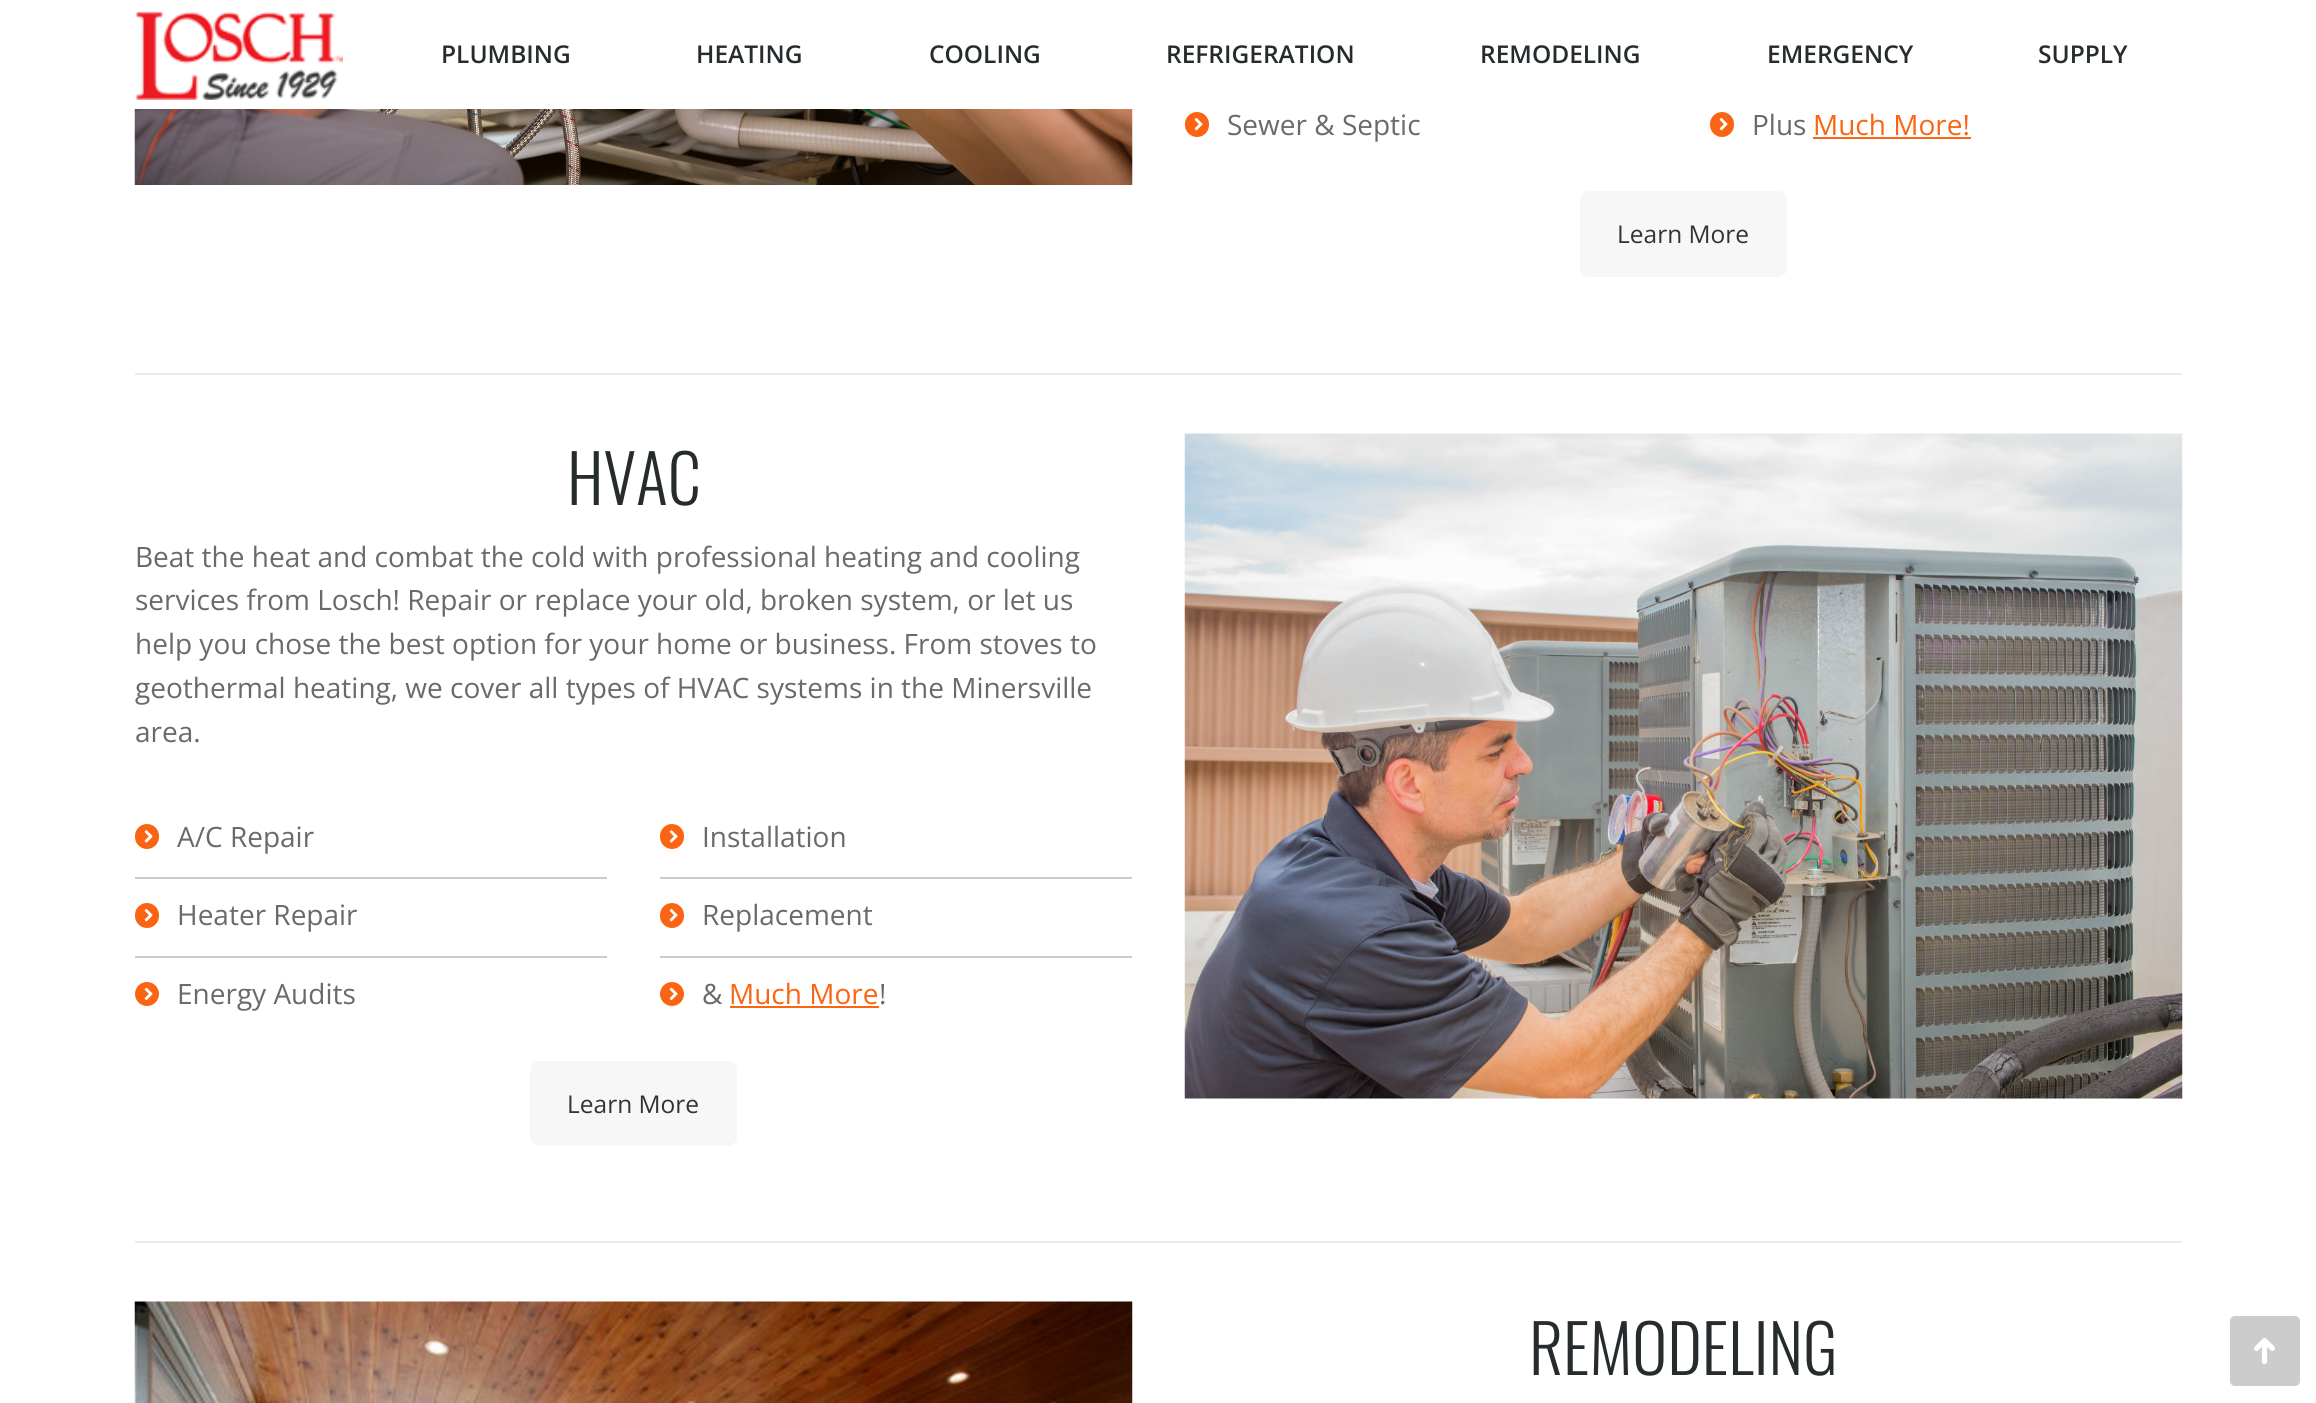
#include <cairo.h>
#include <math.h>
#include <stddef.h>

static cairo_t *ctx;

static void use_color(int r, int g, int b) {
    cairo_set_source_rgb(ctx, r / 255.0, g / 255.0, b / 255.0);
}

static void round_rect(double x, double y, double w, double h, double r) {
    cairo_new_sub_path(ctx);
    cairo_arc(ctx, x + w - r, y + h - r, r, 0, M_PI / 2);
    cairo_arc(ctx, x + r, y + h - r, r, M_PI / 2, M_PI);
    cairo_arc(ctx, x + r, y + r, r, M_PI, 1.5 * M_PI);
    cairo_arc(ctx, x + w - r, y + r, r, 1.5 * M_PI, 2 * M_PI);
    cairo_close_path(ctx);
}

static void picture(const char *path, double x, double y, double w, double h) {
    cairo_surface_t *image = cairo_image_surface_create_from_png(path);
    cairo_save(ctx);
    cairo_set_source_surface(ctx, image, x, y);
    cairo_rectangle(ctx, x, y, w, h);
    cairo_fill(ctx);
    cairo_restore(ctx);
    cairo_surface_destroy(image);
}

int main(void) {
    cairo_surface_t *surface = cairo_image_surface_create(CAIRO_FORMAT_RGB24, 2316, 1403);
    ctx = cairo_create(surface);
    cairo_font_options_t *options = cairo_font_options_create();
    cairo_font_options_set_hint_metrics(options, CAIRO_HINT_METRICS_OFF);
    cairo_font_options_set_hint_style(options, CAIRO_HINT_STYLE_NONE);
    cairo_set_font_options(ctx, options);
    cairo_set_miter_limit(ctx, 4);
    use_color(255, 255, 255);
    cairo_paint(ctx);
    picture("img1.png", 136, 11, 207, 89);
    cairo_select_font_face(ctx, "Open Sans SemiBold", CAIRO_FONT_SLANT_NORMAL, CAIRO_FONT_WEIGHT_NORMAL);
    cairo_set_font_size(ctx, 24.5);
    use_color(38, 43, 46);
    cairo_move_to(ctx, 441, 63);
    cairo_show_text(ctx, "PLUMBING");
    cairo_move_to(ctx, 696, 63);
    cairo_show_text(ctx, "HEATING");
    cairo_move_to(ctx, 929, 63);
    cairo_show_text(ctx, "COOLING");
    cairo_move_to(ctx, 1166, 63);
    cairo_show_text(ctx, "REFRIGERATION");
    cairo_move_to(ctx, 1480, 63);
    cairo_show_text(ctx, "REMODELING");
    cairo_move_to(ctx, 1767, 63);
    cairo_show_text(ctx, "EMERGENCY");
    cairo_move_to(ctx, 2038, 63);
    cairo_show_text(ctx, "SUPPLY");
    picture("img2.png", 134, 109, 999, 76);
    use_color(250, 100, 19);
    round_rect(1185, 112, 24, 25, 12);
    cairo_fill(ctx);
    cairo_select_font_face(ctx, "Open Sans", CAIRO_FONT_SLANT_NORMAL, CAIRO_FONT_WEIGHT_NORMAL);
    cairo_set_font_size(ctx, 28);
    use_color(103, 107, 109);
    cairo_move_to(ctx, 1227, 135);
    cairo_show_text(ctx, "Sewer & Septic");
    picture("img3.png", 1194, 118, 9, 13);
    use_color(250, 100, 19);
    round_rect(1710, 112, 24, 25, 12);
    cairo_fill(ctx);
    use_color(103, 107, 109);
    cairo_move_to(ctx, 1752, 135);
    cairo_show_text(ctx, "Plus");
    use_color(250, 100, 19);
    cairo_move_to(ctx, 1813, 135);
    cairo_show_text(ctx, "Much More!");
    cairo_rectangle(ctx, 1813, 137, 158, 2);
    cairo_fill(ctx);
    picture("img3.png", 1719, 118, 9, 13);
    use_color(247, 247, 247);
    round_rect(1580, 191, 207, 86, 9);
    cairo_fill(ctx);
    cairo_set_font_size(ctx, 24.5);
    use_color(51, 51, 51);
    cairo_move_to(ctx, 1617, 243);
    cairo_show_text(ctx, "Learn More");
    use_color(235, 235, 235);
    cairo_rectangle(ctx, 135, 373, 2047, 2);
    cairo_fill(ctx);
    cairo_select_font_face(ctx, "Oswald Light", CAIRO_FONT_SLANT_NORMAL, CAIRO_FONT_WEIGHT_NORMAL);
    cairo_set_font_size(ctx, 66.5);
    use_color(38, 43, 46);
    cairo_move_to(ctx, 567, 505);
    cairo_show_text(ctx, "HVAC");
    cairo_select_font_face(ctx, "Open Sans", CAIRO_FONT_SLANT_NORMAL, CAIRO_FONT_WEIGHT_NORMAL);
    cairo_set_font_size(ctx, 28);
    use_color(103, 107, 109);
    cairo_move_to(ctx, 135, 567);
    cairo_show_text(ctx, "Beat the heat and combat the cold with professional heating and cooling");
    cairo_move_to(ctx, 135, 610);
    cairo_show_text(ctx, "services from Losch! Repair or replace your old, broken system, or let us");
    cairo_move_to(ctx, 135, 654);
    cairo_show_text(ctx, "help you chose the best option for your home or business. From stoves to");
    cairo_move_to(ctx, 135, 698);
    cairo_show_text(ctx, "geothermal heating, we cover all types of HVAC systems in the Minersville");
    cairo_move_to(ctx, 135, 742);
    cairo_show_text(ctx, "area.");
    use_color(250, 100, 19);
    round_rect(135, 824, 24, 25, 12);
    cairo_fill(ctx);
    use_color(103, 107, 109);
    cairo_move_to(ctx, 177, 847);
    cairo_show_text(ctx, "A/C Repair");
    picture("img4.png", 144, 830, 9, 13);
    use_color(204, 204, 204);
    cairo_rectangle(ctx, 135, 877, 472, 2);
    cairo_fill(ctx);
    use_color(250, 100, 19);
    round_rect(135, 903, 24, 25, 12);
    cairo_fill(ctx);
    use_color(103, 107, 109);
    cairo_move_to(ctx, 177, 925);
    cairo_show_text(ctx, "Heater Repair");
    picture("img3.png", 144, 909, 9, 13);
    use_color(204, 204, 204);
    cairo_rectangle(ctx, 135, 956, 472, 2);
    cairo_fill(ctx);
    use_color(250, 100, 19);
    cairo_arc(ctx, 147, 994, 12, 0, 2 * M_PI);
    cairo_fill(ctx);
    use_color(103, 107, 109);
    cairo_move_to(ctx, 177, 1004);
    cairo_show_text(ctx, "Energy Audits");
    picture("img5.png", 144, 987, 9, 13);
    use_color(250, 100, 19);
    round_rect(660, 824, 24, 25, 12);
    cairo_fill(ctx);
    use_color(103, 107, 109);
    cairo_move_to(ctx, 702, 847);
    cairo_show_text(ctx, "Installation");
    picture("img4.png", 669, 830, 9, 13);
    use_color(204, 204, 204);
    cairo_rectangle(ctx, 660, 877, 472, 2);
    cairo_fill(ctx);
    use_color(250, 100, 19);
    round_rect(660, 903, 24, 25, 12);
    cairo_fill(ctx);
    use_color(103, 107, 109);
    cairo_move_to(ctx, 702, 925);
    cairo_show_text(ctx, "Replacement");
    picture("img3.png", 669, 909, 9, 13);
    use_color(204, 204, 204);
    cairo_rectangle(ctx, 660, 956, 472, 2);
    cairo_fill(ctx);
    use_color(250, 100, 19);
    cairo_arc(ctx, 672, 994, 12, 0, 2 * M_PI);
    cairo_fill(ctx);
    use_color(103, 107, 109);
    cairo_move_to(ctx, 702, 1004);
    cairo_show_text(ctx, "&");
    use_color(250, 100, 19);
    cairo_move_to(ctx, 729, 1004);
    cairo_show_text(ctx, "Much More");
    cairo_rectangle(ctx, 730, 1006, 149, 2);
    cairo_fill(ctx);
    use_color(103, 107, 109);
    cairo_move_to(ctx, 879, 1004);
    cairo_show_text(ctx, "!");
    picture("img5.png", 669, 987, 9, 13);
    use_color(247, 247, 247);
    round_rect(530, 1061, 207, 85, 9);
    cairo_fill(ctx);
    cairo_set_font_size(ctx, 24.5);
    use_color(51, 51, 51);
    cairo_move_to(ctx, 567, 1113);
    cairo_show_text(ctx, "Learn More");
    picture("img6.png", 1184, 433, 999, 666);
    use_color(235, 235, 235);
    cairo_rectangle(ctx, 135, 1241, 2047, 2);
    cairo_fill(ctx);
    picture("img7.png", 134, 1301, 999, 102);
    cairo_select_font_face(ctx, "Oswald Light", CAIRO_FONT_SLANT_NORMAL, CAIRO_FONT_WEIGHT_NORMAL);
    cairo_set_font_size(ctx, 66.5);
    use_color(38, 43, 46);
    cairo_move_to(ctx, 1529, 1375);
    cairo_show_text(ctx, "REMODELING");
    use_color(204, 204, 204);
    round_rect(2230, 1316, 70, 70, 5);
    cairo_fill(ctx);
    picture("img8.png", 2254, 1337, 21, 28);
    cairo_surface_write_to_png(surface, "result.png");
    cairo_font_options_destroy(options);
    cairo_destroy(ctx);
    cairo_surface_destroy(surface);
    return 0;
}
